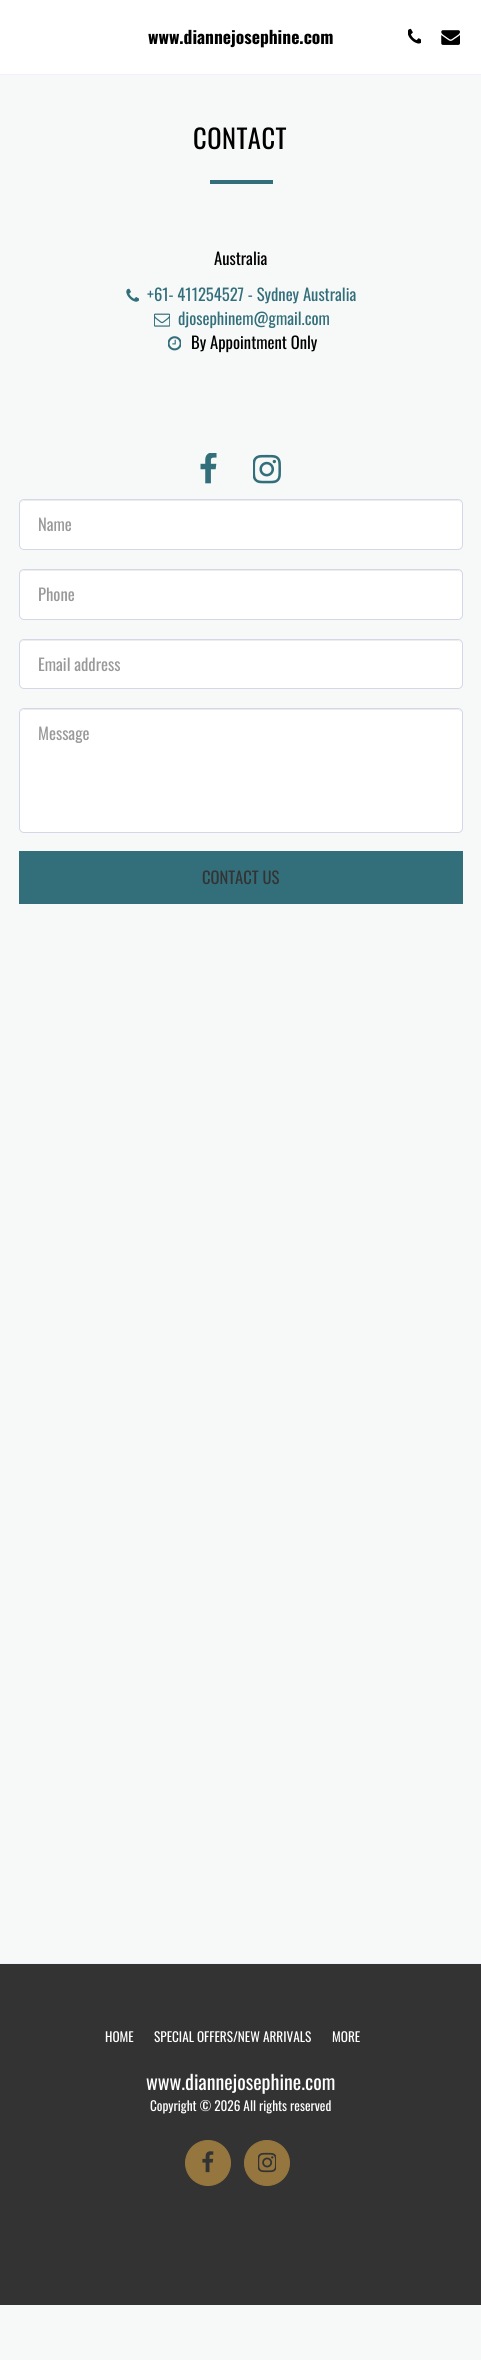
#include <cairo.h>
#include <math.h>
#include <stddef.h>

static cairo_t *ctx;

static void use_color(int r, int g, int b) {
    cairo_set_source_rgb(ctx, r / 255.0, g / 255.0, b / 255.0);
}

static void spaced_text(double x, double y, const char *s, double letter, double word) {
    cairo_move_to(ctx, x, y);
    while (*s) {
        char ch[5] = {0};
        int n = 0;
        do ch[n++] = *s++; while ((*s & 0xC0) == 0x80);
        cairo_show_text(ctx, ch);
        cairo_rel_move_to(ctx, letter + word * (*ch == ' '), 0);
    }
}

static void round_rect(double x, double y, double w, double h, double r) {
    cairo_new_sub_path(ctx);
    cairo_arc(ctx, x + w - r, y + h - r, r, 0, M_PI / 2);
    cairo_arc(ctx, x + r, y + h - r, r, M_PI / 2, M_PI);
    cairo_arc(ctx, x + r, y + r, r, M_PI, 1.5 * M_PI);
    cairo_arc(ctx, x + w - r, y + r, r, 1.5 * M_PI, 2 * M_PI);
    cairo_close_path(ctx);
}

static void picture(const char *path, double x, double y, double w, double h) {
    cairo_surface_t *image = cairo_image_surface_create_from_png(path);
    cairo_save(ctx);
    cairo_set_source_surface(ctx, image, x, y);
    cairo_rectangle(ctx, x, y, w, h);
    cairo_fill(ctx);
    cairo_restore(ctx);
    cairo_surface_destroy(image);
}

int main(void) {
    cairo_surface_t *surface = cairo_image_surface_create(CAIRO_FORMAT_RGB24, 481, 2360);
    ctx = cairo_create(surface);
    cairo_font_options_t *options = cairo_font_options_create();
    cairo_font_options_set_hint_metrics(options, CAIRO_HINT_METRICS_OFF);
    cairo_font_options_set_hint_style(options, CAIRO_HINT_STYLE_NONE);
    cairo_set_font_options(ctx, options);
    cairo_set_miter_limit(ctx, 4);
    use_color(247, 249, 248);
    cairo_paint(ctx);
    use_color(255, 255, 255);
    cairo_rectangle(ctx, 0, 0, 481, 74);
    cairo_fill(ctx);
    use_color(242, 240, 252);
    cairo_rectangle(ctx, 0, 74, 481, 1);
    cairo_fill(ctx);
    cairo_select_font_face(ctx, "Oswald", CAIRO_FONT_SLANT_NORMAL, CAIRO_FONT_WEIGHT_BOLD);
    cairo_set_font_size(ctx, 17.5);
    use_color(0, 0, 0);
    cairo_move_to(ctx, 148, 44);
    cairo_show_text(ctx, "www.diannejosephine.com");
    picture("img1.png", 408, 28, 13, 16);
    picture("img2.png", 441, 30, 19, 15);
    cairo_select_font_face(ctx, "Oswald", CAIRO_FONT_SLANT_NORMAL, CAIRO_FONT_WEIGHT_NORMAL);
    cairo_set_font_size(ctx, 26.5);
    spaced_text(193, 149, "CONTACT", 0.5, 0);
    use_color(51, 110, 123);
    cairo_rectangle(ctx, 210, 180, 63, 4);
    cairo_fill(ctx);
    cairo_set_font_size(ctx, 16.6);
    use_color(0, 0, 0);
    cairo_move_to(ctx, 214, 265);
    cairo_show_text(ctx, "Australia");
    picture("img3.png", 126, 288, 13, 14);
    use_color(51, 110, 123);
    cairo_move_to(ctx, 147, 301);
    cairo_show_text(ctx, "+61- 411254527 - Sydney Australia");
    picture("img4.png", 154, 313, 16, 14);
    cairo_move_to(ctx, 178, 325);
    cairo_show_text(ctx, "djosephinem@gmail.com");
    picture("img5.png", 168, 336, 13, 15);
    use_color(0, 0, 0);
    cairo_move_to(ctx, 191, 349);
    cairo_show_text(ctx, "By Appointment Only");
    picture("img6.png", 200, 453, 17, 31);
    picture("img7.png", 253, 454, 28, 30);
    use_color(255, 255, 255);
    round_rect(19, 499, 444, 51, 5);
    cairo_fill(ctx);
    use_color(236, 236, 236);
    cairo_new_path(ctx);
    cairo_move_to(ctx, 24, 501);
    cairo_line_to(ctx, 458, 501);
    cairo_curve_to(ctx, 460, 501, 461, 503, 461, 505);
    cairo_curve_to(ctx, 461, 502, 460, 500, 457, 500);
    cairo_line_to(ctx, 24, 500);
    cairo_line_to(ctx, 22, 501);
    cairo_line_to(ctx, 21, 502);
    cairo_line_to(ctx, 20, 505);
    cairo_curve_to(ctx, 20, 503, 22, 501, 24, 501);
    cairo_close_path(ctx);
    cairo_fill(ctx);
    round_rect(19.5, 499.5, 443, 50, 4.5);
    use_color(212, 215, 229);
    cairo_set_line_width(ctx, 1);
    cairo_stroke(ctx);
    use_color(153, 153, 153);
    cairo_move_to(ctx, 38, 531);
    cairo_show_text(ctx, "Name");
    use_color(255, 255, 255);
    round_rect(19, 569, 444, 51, 5);
    cairo_fill(ctx);
    use_color(236, 236, 236);
    cairo_new_path(ctx);
    cairo_move_to(ctx, 24, 571);
    cairo_line_to(ctx, 458, 571);
    cairo_curve_to(ctx, 460, 571, 461, 573, 461, 575);
    cairo_curve_to(ctx, 461, 572, 460, 570, 457, 570);
    cairo_line_to(ctx, 24, 570);
    cairo_line_to(ctx, 22, 571);
    cairo_line_to(ctx, 21, 572);
    cairo_line_to(ctx, 20, 575);
    cairo_curve_to(ctx, 20, 573, 22, 571, 24, 571);
    cairo_close_path(ctx);
    cairo_fill(ctx);
    round_rect(19.5, 569.5, 443, 50, 4.5);
    use_color(212, 215, 229);
    cairo_stroke(ctx);
    use_color(153, 153, 153);
    cairo_move_to(ctx, 38, 601);
    cairo_show_text(ctx, "Phone");
    use_color(255, 255, 255);
    round_rect(19, 639, 444, 50, 5);
    cairo_fill(ctx);
    use_color(236, 236, 236);
    cairo_new_path(ctx);
    cairo_move_to(ctx, 24, 641);
    cairo_line_to(ctx, 458, 641);
    cairo_curve_to(ctx, 460, 641, 461, 643, 461, 645);
    cairo_curve_to(ctx, 461, 642, 460, 640, 457, 640);
    cairo_line_to(ctx, 24, 640);
    cairo_line_to(ctx, 22, 641);
    cairo_line_to(ctx, 21, 642);
    cairo_line_to(ctx, 20, 645);
    cairo_curve_to(ctx, 20, 643, 22, 641, 24, 641);
    cairo_close_path(ctx);
    cairo_fill(ctx);
    round_rect(19.5, 639.5, 443, 49, 4.5);
    use_color(212, 215, 229);
    cairo_stroke(ctx);
    use_color(153, 153, 153);
    cairo_move_to(ctx, 38, 671);
    cairo_show_text(ctx, "Email address");
    use_color(255, 255, 255);
    round_rect(19, 708, 444, 125, 5);
    cairo_fill(ctx);
    use_color(236, 236, 236);
    cairo_new_path(ctx);
    cairo_move_to(ctx, 24, 710);
    cairo_line_to(ctx, 458, 710);
    cairo_curve_to(ctx, 460, 710, 461, 712, 461, 714);
    cairo_curve_to(ctx, 461, 711, 460, 709, 457, 709);
    cairo_line_to(ctx, 24, 709);
    cairo_line_to(ctx, 22, 710);
    cairo_line_to(ctx, 21, 711);
    cairo_line_to(ctx, 20, 714);
    cairo_curve_to(ctx, 20, 712, 22, 710, 24, 710);
    cairo_close_path(ctx);
    cairo_fill(ctx);
    round_rect(19.5, 708.5, 443, 124, 4.5);
    use_color(212, 215, 229);
    cairo_stroke(ctx);
    use_color(153, 153, 153);
    cairo_move_to(ctx, 38, 740);
    cairo_show_text(ctx, "Message");
    use_color(51, 110, 123);
    cairo_rectangle(ctx, 19, 851, 444, 53);
    cairo_fill(ctx);
    use_color(51, 51, 51);
    cairo_move_to(ctx, 202, 884);
    cairo_show_text(ctx, "CONTACT US");
    cairo_rectangle(ctx, 0, 1964, 481, 341);
    cairo_fill(ctx);
    use_color(242, 240, 252);
    cairo_rectangle(ctx, 0, 1963, 481, 1);
    cairo_fill(ctx);
    cairo_set_font_size(ctx, 13.25);
    use_color(255, 255, 255);
    cairo_move_to(ctx, 105, 2042);
    cairo_show_text(ctx, "HOME");
    cairo_move_to(ctx, 154, 2042);
    cairo_show_text(ctx, "SPECIAL OFFERS/NEW ARRIVALS");
    cairo_move_to(ctx, 332, 2042);
    cairo_show_text(ctx, "MORE");
    cairo_set_font_size(ctx, 20);
    cairo_move_to(ctx, 146, 2090);
    cairo_show_text(ctx, "www.diannejosephine.com");
    cairo_set_font_size(ctx, 13.25);
    cairo_move_to(ctx, 150, 2111);
    cairo_show_text(ctx, "Copyright © 2026 All rights reserved");
    use_color(148, 118, 62);
    cairo_new_path(ctx);
    cairo_arc(ctx, 208, 2163, 22.5, 0, 2 * M_PI);
    cairo_fill_preserve(ctx);
    cairo_stroke(ctx);
    picture("img8.png", 202, 2151, 12, 22);
    cairo_arc(ctx, 267, 2163, 22.5, 0, 2 * M_PI);
    cairo_fill_preserve(ctx);
    cairo_stroke(ctx);
    picture("img9.png", 258, 2152, 18, 21);
    cairo_surface_write_to_png(surface, "result.png");
    cairo_font_options_destroy(options);
    cairo_destroy(ctx);
    cairo_surface_destroy(surface);
    return 0;
}
